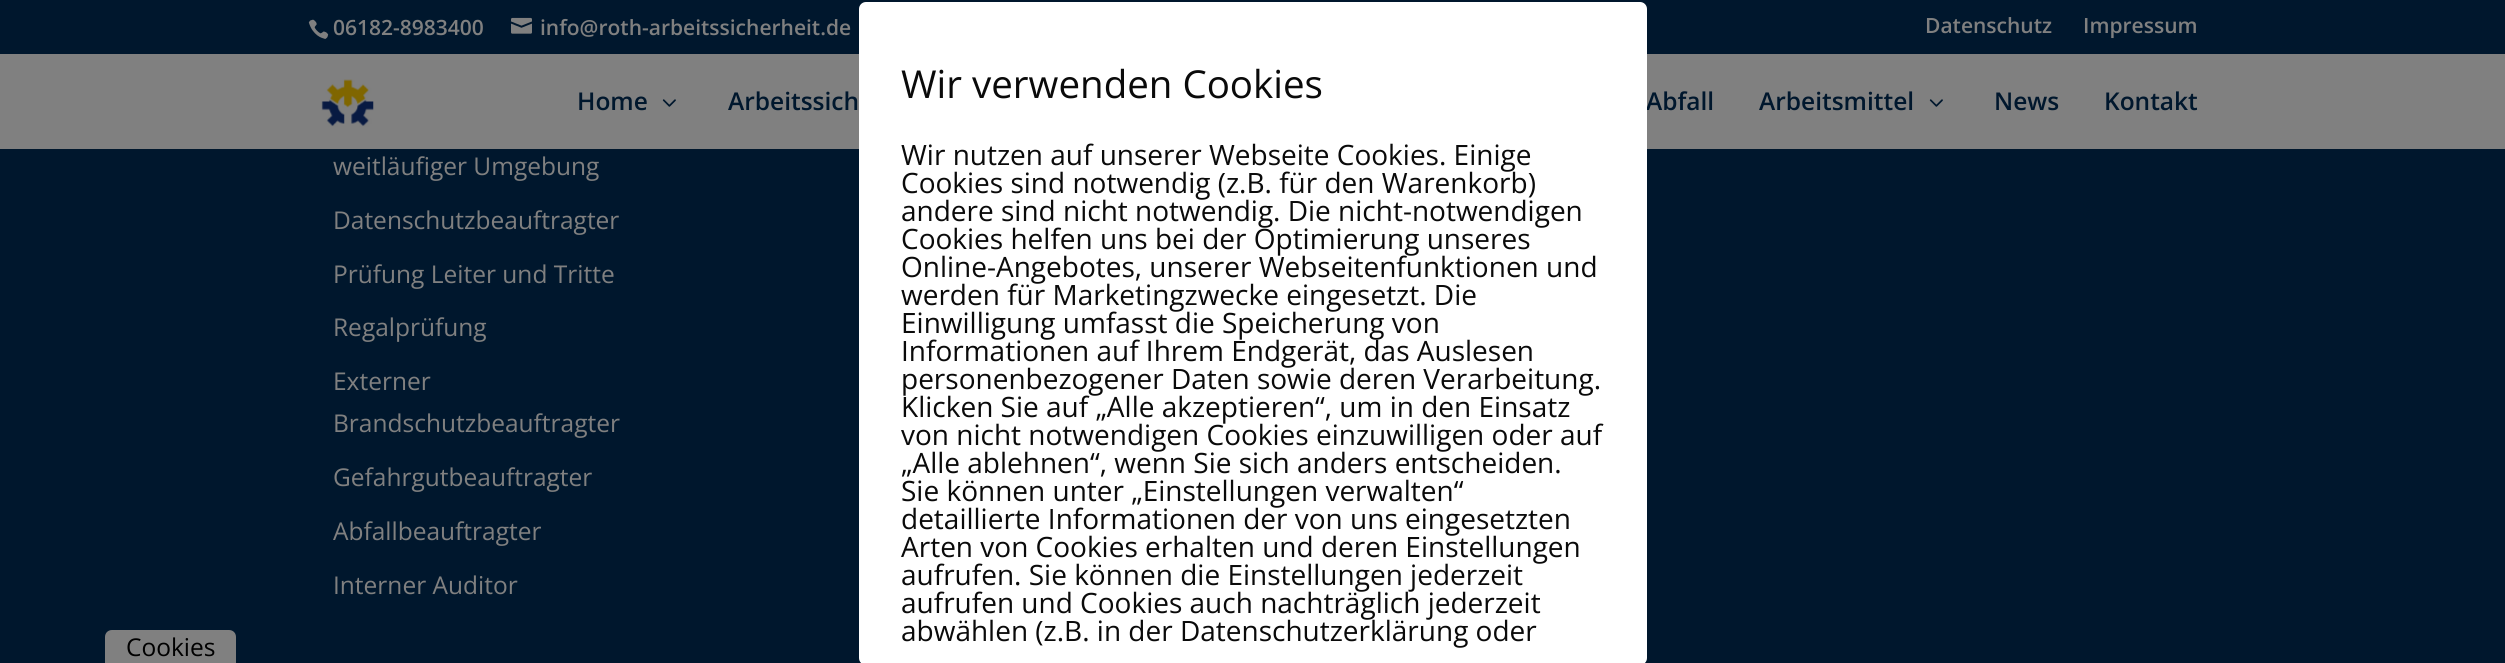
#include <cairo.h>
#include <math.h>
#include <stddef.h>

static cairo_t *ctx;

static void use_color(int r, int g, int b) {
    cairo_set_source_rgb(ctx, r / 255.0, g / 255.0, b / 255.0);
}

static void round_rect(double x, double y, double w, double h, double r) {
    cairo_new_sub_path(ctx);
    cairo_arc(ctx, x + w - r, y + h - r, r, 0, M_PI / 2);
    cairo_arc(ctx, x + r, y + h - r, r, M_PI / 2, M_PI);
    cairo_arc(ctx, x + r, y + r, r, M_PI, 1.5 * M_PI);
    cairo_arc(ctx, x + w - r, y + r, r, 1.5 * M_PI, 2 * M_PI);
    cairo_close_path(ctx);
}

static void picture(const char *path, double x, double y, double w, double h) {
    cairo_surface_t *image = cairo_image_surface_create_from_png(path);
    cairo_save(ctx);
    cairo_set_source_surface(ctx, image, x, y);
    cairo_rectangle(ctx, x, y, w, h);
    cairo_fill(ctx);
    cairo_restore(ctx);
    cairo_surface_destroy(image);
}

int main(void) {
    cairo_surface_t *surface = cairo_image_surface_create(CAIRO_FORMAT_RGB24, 2505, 663);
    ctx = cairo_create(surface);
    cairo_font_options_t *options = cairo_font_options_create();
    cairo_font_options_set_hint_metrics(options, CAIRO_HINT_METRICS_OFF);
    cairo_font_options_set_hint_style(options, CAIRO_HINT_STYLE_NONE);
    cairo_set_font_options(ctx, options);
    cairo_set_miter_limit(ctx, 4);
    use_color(0, 23, 45);
    cairo_paint(ctx);
    picture("img1.png", 308, 19, 21, 20);
    cairo_select_font_face(ctx, "Open Sans SemiBold", CAIRO_FONT_SLANT_NORMAL, CAIRO_FONT_WEIGHT_NORMAL);
    cairo_set_font_size(ctx, 21);
    use_color(128, 128, 128);
    cairo_move_to(ctx, 333, 35);
    cairo_show_text(ctx, "06182-8983400");
    picture("img2.png", 511, 17, 21, 17);
    cairo_move_to(ctx, 540, 35);
    cairo_show_text(ctx, "info@roth-arbeitssicherheit.de");
    cairo_move_to(ctx, 1925, 33);
    cairo_show_text(ctx, "Datenschutz");
    cairo_move_to(ctx, 2083, 33);
    cairo_show_text(ctx, "Impressum");
    cairo_rectangle(ctx, 0, 54, 2505, 95);
    cairo_fill(ctx);
    picture("img3.png", 321, 79, 53, 48);
    cairo_set_font_size(ctx, 24.5);
    use_color(0, 23, 45);
    cairo_move_to(ctx, 577, 110);
    cairo_show_text(ctx, "Home");
    picture("img4.png", 662, 99, 14, 8);
    cairo_move_to(ctx, 728, 110);
    cairo_show_text(ctx, "Arbeitssich");
    cairo_move_to(ctx, 1646, 110);
    cairo_show_text(ctx, "Abfall");
    cairo_move_to(ctx, 1759, 110);
    cairo_show_text(ctx, "Arbeitsmittel");
    picture("img4.png", 1929, 99, 14, 8);
    cairo_move_to(ctx, 1994, 110);
    cairo_show_text(ctx, "News");
    cairo_move_to(ctx, 2104, 110);
    cairo_show_text(ctx, "Kontakt");
    cairo_select_font_face(ctx, "Open Sans", CAIRO_FONT_SLANT_NORMAL, CAIRO_FONT_WEIGHT_NORMAL);
    use_color(128, 128, 128);
    cairo_move_to(ctx, 333, 175);
    cairo_show_text(ctx, "weitläufiger Umgebung");
    cairo_move_to(ctx, 333, 229);
    cairo_show_text(ctx, "Datenschutzbeauftragter");
    cairo_move_to(ctx, 333, 283);
    cairo_show_text(ctx, "Prüfung Leiter und Tritte");
    cairo_move_to(ctx, 333, 336);
    cairo_show_text(ctx, "Regalprüfung");
    cairo_move_to(ctx, 333, 390);
    cairo_show_text(ctx, "Externer");
    cairo_move_to(ctx, 333, 432);
    cairo_show_text(ctx, "Brandschutzbeauftragter");
    cairo_move_to(ctx, 333, 486);
    cairo_show_text(ctx, "Gefahrgutbeauftragter");
    cairo_move_to(ctx, 333, 540);
    cairo_show_text(ctx, "Abfallbeauftragter");
    cairo_move_to(ctx, 333, 594);
    cairo_show_text(ctx, "Interner Auditor");
    cairo_new_path(ctx);
    cairo_move_to(ctx, 112, 630);
    cairo_line_to(ctx, 229, 630);
    cairo_curve_to(ctx, 233, 630, 236, 633, 236, 637);
    cairo_line_to(ctx, 236, 663);
    cairo_line_to(ctx, 105, 663);
    cairo_line_to(ctx, 105, 637);
    cairo_curve_to(ctx, 105, 633, 108, 630, 112, 630);
    cairo_close_path(ctx);
    cairo_fill(ctx);
    use_color(0, 0, 0);
    cairo_move_to(ctx, 126, 656);
    cairo_show_text(ctx, "Cookies");
    use_color(255, 255, 255);
    round_rect(859, 2, 788, 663, 7);
    cairo_fill(ctx);
    cairo_set_font_size(ctx, 38.5);
    use_color(10, 10, 10);
    cairo_move_to(ctx, 901, 98);
    cairo_show_text(ctx, "Wir verwenden Cookies");
    cairo_set_font_size(ctx, 28);
    cairo_move_to(ctx, 901, 165);
    cairo_show_text(ctx, "Wir nutzen auf unserer Webseite Cookies. Einige");
    cairo_move_to(ctx, 901, 193);
    cairo_show_text(ctx, "Cookies sind notwendig (z.B. für den Warenkorb)");
    cairo_move_to(ctx, 901, 221);
    cairo_show_text(ctx, "andere sind nicht notwendig. Die nicht-notwendigen");
    cairo_move_to(ctx, 901, 249);
    cairo_show_text(ctx, "Cookies helfen uns bei der Optimierung unseres");
    cairo_move_to(ctx, 901, 277);
    cairo_show_text(ctx, "Online-Angebotes, unserer Webseitenfunktionen und");
    cairo_move_to(ctx, 901, 305);
    cairo_show_text(ctx, "werden für Marketingzwecke eingesetzt. Die");
    cairo_move_to(ctx, 901, 333);
    cairo_show_text(ctx, "Einwilligung umfasst die Speicherung von");
    cairo_move_to(ctx, 901, 361);
    cairo_show_text(ctx, "Informationen auf Ihrem Endgerät, das Auslesen");
    cairo_move_to(ctx, 901, 389);
    cairo_show_text(ctx, "personenbezogener Daten sowie deren Verarbeitung.");
    cairo_move_to(ctx, 901, 417);
    cairo_show_text(ctx, "Klicken Sie auf „Alle akzeptieren“, um in den Einsatz");
    cairo_move_to(ctx, 901, 445);
    cairo_show_text(ctx, "von nicht notwendigen Cookies einzuwilligen oder auf");
    cairo_move_to(ctx, 901, 473);
    cairo_show_text(ctx, "„Alle ablehnen“, wenn Sie sich anders entscheiden.");
    cairo_move_to(ctx, 901, 501);
    cairo_show_text(ctx, "Sie können unter „Einstellungen verwalten“");
    cairo_move_to(ctx, 901, 529);
    cairo_show_text(ctx, "detaillierte Informationen der von uns eingesetzten");
    cairo_move_to(ctx, 901, 557);
    cairo_show_text(ctx, "Arten von Cookies erhalten und deren Einstellungen");
    cairo_move_to(ctx, 901, 585);
    cairo_show_text(ctx, "aufrufen. Sie können die Einstellungen jederzeit");
    cairo_move_to(ctx, 901, 613);
    cairo_show_text(ctx, "aufrufen und Cookies auch nachträglich jederzeit");
    cairo_move_to(ctx, 901, 641);
    cairo_show_text(ctx, "abwählen (z.B. in der Datenschutzerklärung oder");
    cairo_surface_write_to_png(surface, "result.png");
    cairo_font_options_destroy(options);
    cairo_destroy(ctx);
    cairo_surface_destroy(surface);
    return 0;
}
